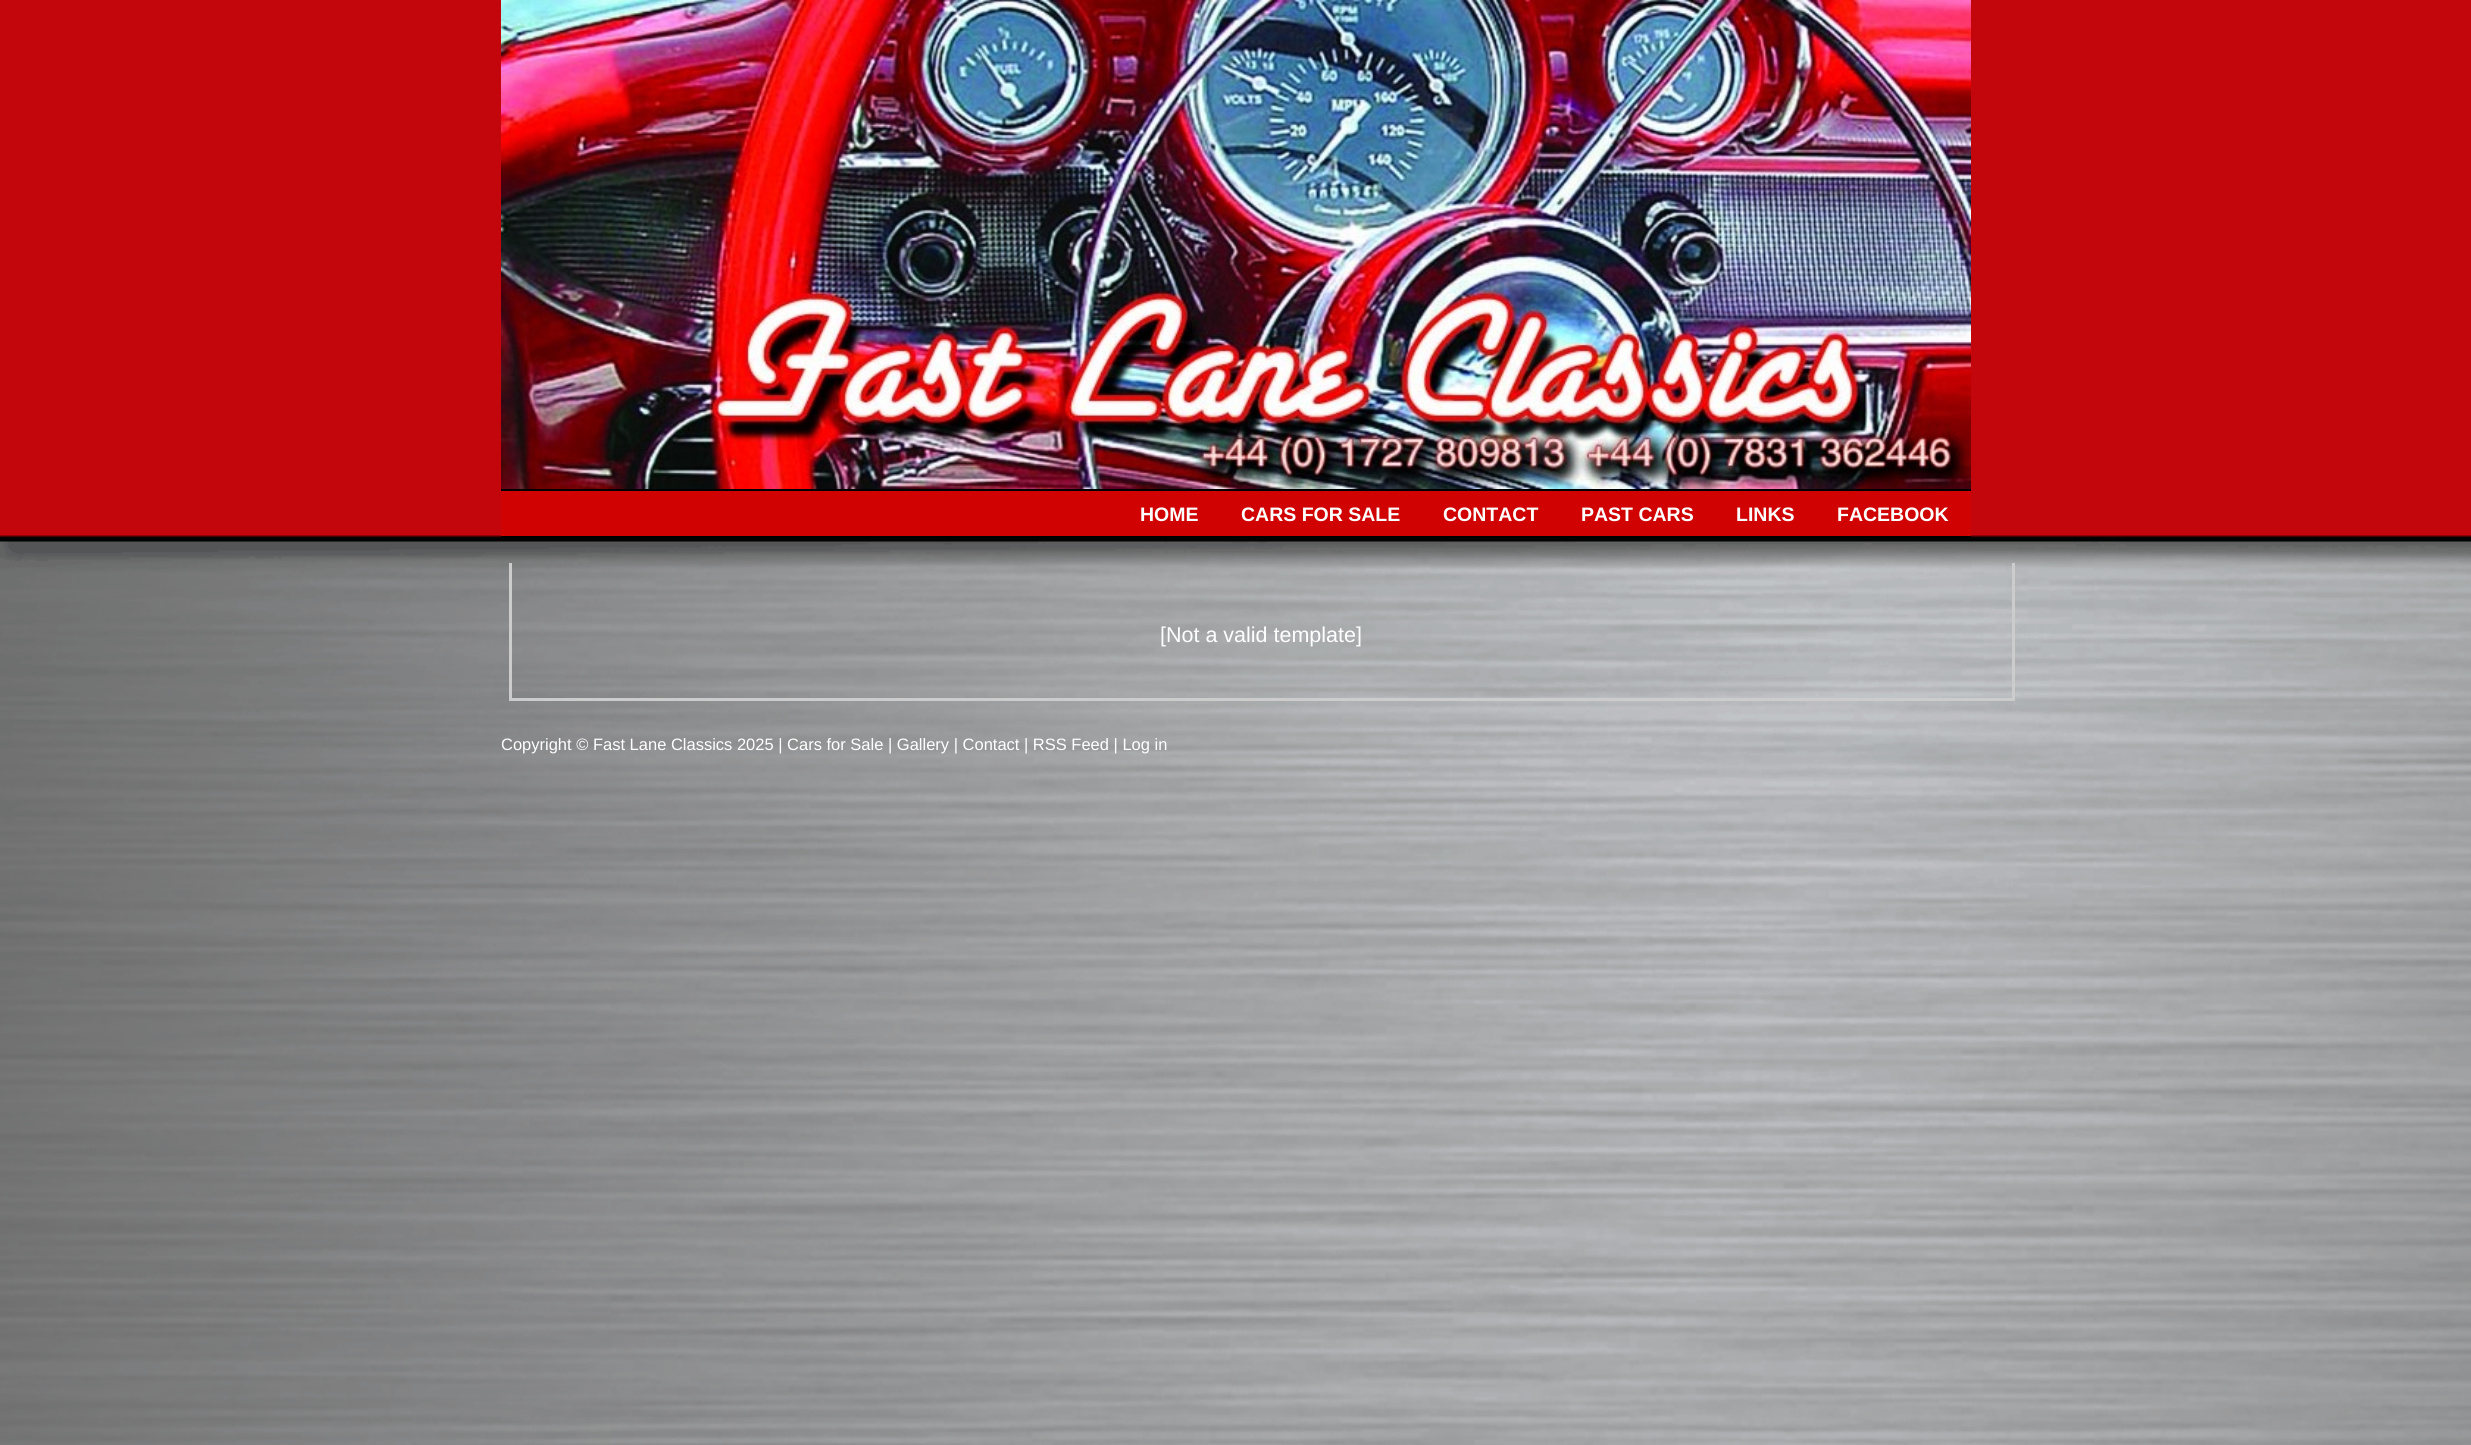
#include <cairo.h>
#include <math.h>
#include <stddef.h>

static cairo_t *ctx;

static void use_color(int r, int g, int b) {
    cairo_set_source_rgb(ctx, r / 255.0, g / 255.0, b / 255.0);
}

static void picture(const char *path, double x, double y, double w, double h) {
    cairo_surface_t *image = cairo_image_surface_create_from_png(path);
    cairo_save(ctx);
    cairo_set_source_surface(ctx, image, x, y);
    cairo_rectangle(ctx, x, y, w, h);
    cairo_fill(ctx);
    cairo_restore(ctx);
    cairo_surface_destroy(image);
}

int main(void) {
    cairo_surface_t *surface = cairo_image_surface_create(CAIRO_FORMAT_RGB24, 2471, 1445);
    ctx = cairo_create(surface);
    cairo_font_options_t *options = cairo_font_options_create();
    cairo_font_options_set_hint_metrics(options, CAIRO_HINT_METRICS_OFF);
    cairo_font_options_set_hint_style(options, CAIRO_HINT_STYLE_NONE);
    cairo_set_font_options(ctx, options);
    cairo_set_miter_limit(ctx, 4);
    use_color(255, 255, 255);
    cairo_paint(ctx);
    picture("img1.png", 0, 0, 2471, 1445);
    picture("img2.png", 501, 0, 1470, 489);
    use_color(208, 2, 2);
    cairo_rectangle(ctx, 501, 491, 1470, 45);
    cairo_fill(ctx);
    use_color(0, 0, 0);
    cairo_rectangle(ctx, 501, 489, 1470, 2);
    cairo_fill(ctx);
    cairo_rectangle(ctx, 501, 536, 1470, 2);
    cairo_fill(ctx);
    cairo_select_font_face(ctx, "Liberation Sans", CAIRO_FONT_SLANT_NORMAL, CAIRO_FONT_WEIGHT_BOLD);
    cairo_set_font_size(ctx, 19.5);
    use_color(255, 255, 255);
    cairo_move_to(ctx, 1140, 521);
    cairo_show_text(ctx, "HOME");
    cairo_move_to(ctx, 1241, 521);
    cairo_show_text(ctx, "CARS FOR SALE");
    cairo_move_to(ctx, 1443, 521);
    cairo_show_text(ctx, "CONTACT");
    cairo_move_to(ctx, 1581, 521);
    cairo_show_text(ctx, "PAST CARS");
    cairo_move_to(ctx, 1736, 521);
    cairo_show_text(ctx, "LINKS");
    cairo_move_to(ctx, 1837, 521);
    cairo_show_text(ctx, "FACEBOOK");
    use_color(204, 204, 204);
    cairo_rectangle(ctx, 2012, 563, 3, 138);
    cairo_fill(ctx);
    cairo_rectangle(ctx, 509, 698, 1506, 3);
    cairo_fill(ctx);
    cairo_rectangle(ctx, 509, 563, 3, 138);
    cairo_fill(ctx);
    cairo_select_font_face(ctx, "Liberation Sans", CAIRO_FONT_SLANT_NORMAL, CAIRO_FONT_WEIGHT_NORMAL);
    cairo_set_font_size(ctx, 21.5);
    use_color(255, 255, 255);
    cairo_move_to(ctx, 1160, 642);
    cairo_show_text(ctx, "[Not a valid template]");
    cairo_set_font_size(ctx, 16.5);
    cairo_move_to(ctx, 501, 750);
    cairo_show_text(ctx, "Copyright © Fast Lane Classics 2025 | Cars for Sale | Gallery | Contact | RSS Feed | Log in");
    cairo_surface_write_to_png(surface, "result.png");
    cairo_font_options_destroy(options);
    cairo_destroy(ctx);
    cairo_surface_destroy(surface);
    return 0;
}
